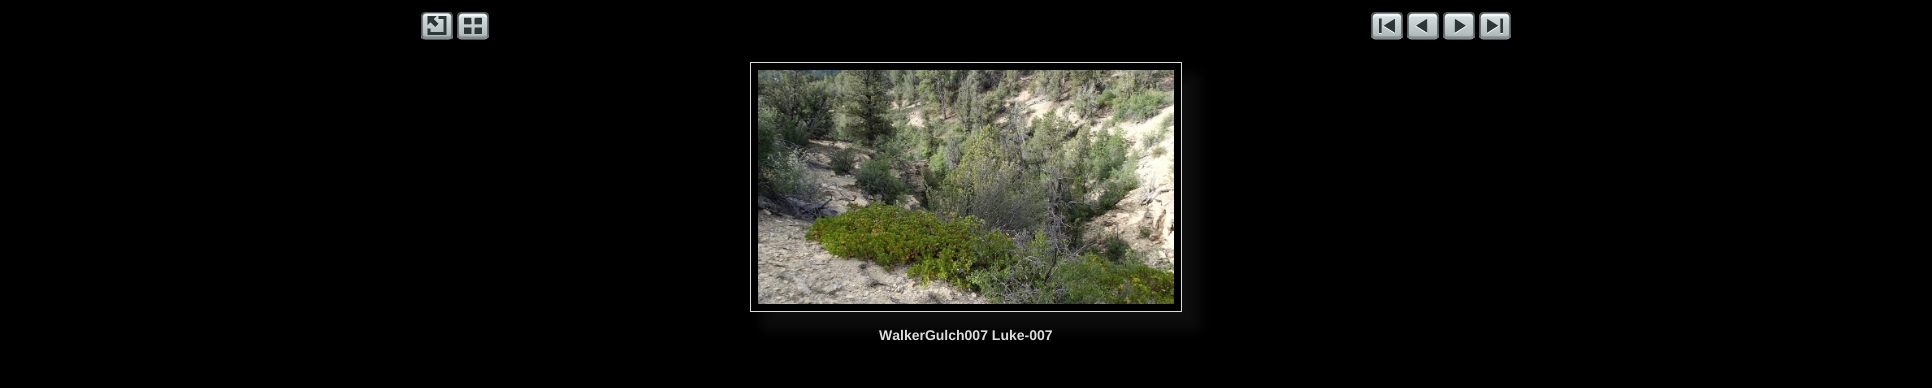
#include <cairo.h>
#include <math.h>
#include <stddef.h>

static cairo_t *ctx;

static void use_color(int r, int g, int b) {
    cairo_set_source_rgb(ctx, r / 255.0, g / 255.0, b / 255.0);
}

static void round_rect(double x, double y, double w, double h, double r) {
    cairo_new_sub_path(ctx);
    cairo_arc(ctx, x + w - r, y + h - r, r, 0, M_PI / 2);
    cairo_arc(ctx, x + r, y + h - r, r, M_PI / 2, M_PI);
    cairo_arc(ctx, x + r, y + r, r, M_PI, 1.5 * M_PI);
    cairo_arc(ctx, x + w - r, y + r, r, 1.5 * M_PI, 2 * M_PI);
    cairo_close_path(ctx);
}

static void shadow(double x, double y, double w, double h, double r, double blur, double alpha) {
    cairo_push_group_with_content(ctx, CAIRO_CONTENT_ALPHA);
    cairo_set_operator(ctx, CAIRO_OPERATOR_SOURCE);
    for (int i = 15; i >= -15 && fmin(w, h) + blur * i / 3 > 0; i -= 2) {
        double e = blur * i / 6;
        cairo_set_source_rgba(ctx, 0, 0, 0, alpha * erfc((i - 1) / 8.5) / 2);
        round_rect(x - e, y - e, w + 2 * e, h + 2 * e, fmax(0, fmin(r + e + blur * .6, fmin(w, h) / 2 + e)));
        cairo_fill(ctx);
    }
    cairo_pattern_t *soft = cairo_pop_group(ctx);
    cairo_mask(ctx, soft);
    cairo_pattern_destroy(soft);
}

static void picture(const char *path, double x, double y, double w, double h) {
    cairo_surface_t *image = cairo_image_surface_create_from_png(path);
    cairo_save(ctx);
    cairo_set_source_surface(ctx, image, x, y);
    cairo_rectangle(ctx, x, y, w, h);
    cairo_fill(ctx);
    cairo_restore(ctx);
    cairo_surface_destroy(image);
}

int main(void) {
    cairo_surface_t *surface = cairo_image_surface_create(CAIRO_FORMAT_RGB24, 1932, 388);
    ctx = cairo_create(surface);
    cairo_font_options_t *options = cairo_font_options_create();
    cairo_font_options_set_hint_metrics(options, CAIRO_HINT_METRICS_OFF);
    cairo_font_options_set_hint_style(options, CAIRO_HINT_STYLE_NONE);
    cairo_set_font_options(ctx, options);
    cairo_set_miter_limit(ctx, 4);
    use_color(0, 0, 0);
    cairo_paint(ctx);
    picture("img1.png", 421, 12, 32, 28);
    picture("img2.png", 457, 12, 32, 28);
    picture("img3.png", 1371, 12, 32, 28);
    picture("img4.png", 1407, 12, 32, 28);
    picture("img5.png", 1443, 12, 32, 28);
    picture("img6.png", 1479, 12, 32, 28);
    cairo_save(ctx);
    cairo_set_fill_rule(ctx, CAIRO_FILL_RULE_EVEN_ODD);
    cairo_new_path(ctx);
    cairo_move_to(ctx, 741, 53);
    cairo_line_to(ctx, 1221, 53);
    cairo_line_to(ctx, 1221, 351);
    cairo_line_to(ctx, 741, 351);
    cairo_close_path(ctx);
    cairo_move_to(ctx, 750, 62);
    cairo_line_to(ctx, 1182, 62);
    cairo_line_to(ctx, 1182, 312);
    cairo_line_to(ctx, 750, 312);
    cairo_close_path(ctx);
    cairo_clip(ctx);
    use_color(51, 51, 51);
    shadow(765, 77, 432, 250, 0, 7.5, 0.3);
    cairo_restore(ctx);
    cairo_rectangle(ctx, 750.5, 62.5, 431, 249);
    use_color(221, 221, 221);
    cairo_set_line_width(ctx, 1);
    cairo_stroke(ctx);
    picture("img7.png", 758, 70, 416, 234);
    cairo_select_font_face(ctx, "Liberation Sans", CAIRO_FONT_SLANT_NORMAL, CAIRO_FONT_WEIGHT_BOLD);
    cairo_set_font_size(ctx, 14);
    cairo_move_to(ctx, 879, 340);
    cairo_show_text(ctx, "WalkerGulch007 Luke-007");
    cairo_surface_write_to_png(surface, "result.png");
    cairo_font_options_destroy(options);
    cairo_destroy(ctx);
    cairo_surface_destroy(surface);
    return 0;
}
